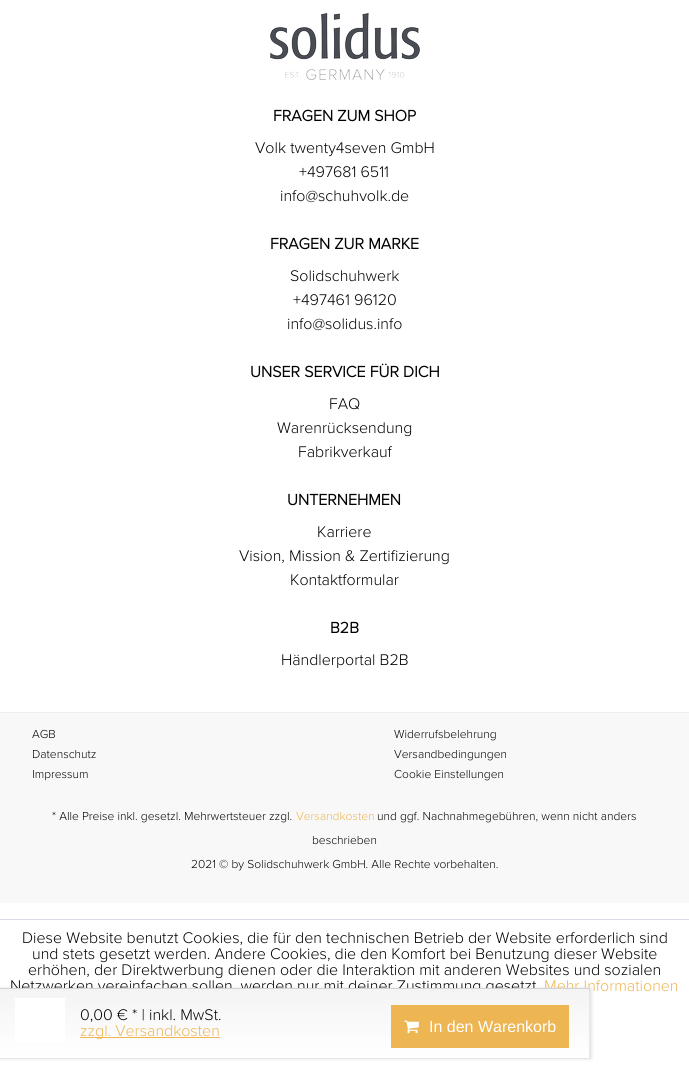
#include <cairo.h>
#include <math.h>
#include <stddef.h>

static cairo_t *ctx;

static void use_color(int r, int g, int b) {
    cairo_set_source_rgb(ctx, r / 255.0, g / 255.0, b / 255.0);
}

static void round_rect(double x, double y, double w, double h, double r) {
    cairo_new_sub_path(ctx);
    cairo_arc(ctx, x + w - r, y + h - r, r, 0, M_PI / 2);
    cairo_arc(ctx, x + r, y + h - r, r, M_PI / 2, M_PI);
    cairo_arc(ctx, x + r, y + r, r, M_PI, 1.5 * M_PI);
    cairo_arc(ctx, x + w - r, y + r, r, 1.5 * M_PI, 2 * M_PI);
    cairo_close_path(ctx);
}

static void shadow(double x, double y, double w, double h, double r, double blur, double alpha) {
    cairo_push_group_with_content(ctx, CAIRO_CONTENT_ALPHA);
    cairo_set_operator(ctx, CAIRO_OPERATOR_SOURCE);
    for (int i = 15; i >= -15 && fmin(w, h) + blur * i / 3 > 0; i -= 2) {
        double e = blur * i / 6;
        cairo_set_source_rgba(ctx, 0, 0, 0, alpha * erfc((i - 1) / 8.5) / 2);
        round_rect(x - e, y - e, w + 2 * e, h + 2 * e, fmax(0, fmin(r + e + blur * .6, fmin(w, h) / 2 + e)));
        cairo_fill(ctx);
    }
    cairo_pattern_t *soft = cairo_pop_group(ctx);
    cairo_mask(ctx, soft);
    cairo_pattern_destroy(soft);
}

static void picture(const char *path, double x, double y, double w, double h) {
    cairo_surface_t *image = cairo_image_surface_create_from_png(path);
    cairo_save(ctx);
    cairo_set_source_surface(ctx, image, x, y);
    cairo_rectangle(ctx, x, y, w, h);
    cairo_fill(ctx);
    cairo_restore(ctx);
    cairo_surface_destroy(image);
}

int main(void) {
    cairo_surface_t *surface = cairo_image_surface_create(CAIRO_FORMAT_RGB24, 689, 1066);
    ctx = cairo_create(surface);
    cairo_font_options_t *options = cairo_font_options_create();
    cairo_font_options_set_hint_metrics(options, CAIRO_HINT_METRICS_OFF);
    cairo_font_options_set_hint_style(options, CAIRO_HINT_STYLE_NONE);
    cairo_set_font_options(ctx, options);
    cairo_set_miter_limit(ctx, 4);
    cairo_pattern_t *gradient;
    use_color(255, 255, 255);
    cairo_paint(ctx);
    picture("img1.png", 270, 13, 150, 67);
    cairo_select_font_face(ctx, "Proxima Nova", CAIRO_FONT_SLANT_NORMAL, CAIRO_FONT_WEIGHT_BOLD);
    cairo_set_font_size(ctx, 16);
    use_color(0, 0, 0);
    cairo_move_to(ctx, 273, 121);
    cairo_show_text(ctx, "FRAGEN ZUM SHOP");
    cairo_select_font_face(ctx, "Proxima Nova Light", CAIRO_FONT_SLANT_NORMAL, CAIRO_FONT_WEIGHT_NORMAL);
    cairo_move_to(ctx, 255, 153);
    cairo_show_text(ctx, "Volk twenty4seven GmbH");
    cairo_move_to(ctx, 299, 177);
    cairo_show_text(ctx, "+497681 6511");
    cairo_move_to(ctx, 280, 201);
    cairo_show_text(ctx, "info@schuhvolk.de");
    cairo_select_font_face(ctx, "Proxima Nova", CAIRO_FONT_SLANT_NORMAL, CAIRO_FONT_WEIGHT_BOLD);
    cairo_move_to(ctx, 270, 249);
    cairo_show_text(ctx, "FRAGEN ZUR MARKE");
    cairo_select_font_face(ctx, "Proxima Nova Light", CAIRO_FONT_SLANT_NORMAL, CAIRO_FONT_WEIGHT_NORMAL);
    cairo_move_to(ctx, 290, 281);
    cairo_show_text(ctx, "Solidschuhwerk");
    cairo_move_to(ctx, 293, 305);
    cairo_show_text(ctx, "+497461 96120");
    cairo_move_to(ctx, 287, 329);
    cairo_show_text(ctx, "info@solidus.info");
    cairo_select_font_face(ctx, "Proxima Nova", CAIRO_FONT_SLANT_NORMAL, CAIRO_FONT_WEIGHT_BOLD);
    cairo_move_to(ctx, 250, 377);
    cairo_show_text(ctx, "UNSER SERVICE FÜR DICH");
    cairo_select_font_face(ctx, "Proxima Nova Light", CAIRO_FONT_SLANT_NORMAL, CAIRO_FONT_WEIGHT_NORMAL);
    cairo_move_to(ctx, 329, 409);
    cairo_show_text(ctx, "FAQ");
    cairo_move_to(ctx, 277, 433);
    cairo_show_text(ctx, "Warenrücksendung");
    cairo_move_to(ctx, 298, 457);
    cairo_show_text(ctx, "Fabrikverkauf");
    cairo_select_font_face(ctx, "Proxima Nova", CAIRO_FONT_SLANT_NORMAL, CAIRO_FONT_WEIGHT_BOLD);
    cairo_move_to(ctx, 287, 505);
    cairo_show_text(ctx, "UNTERNEHMEN");
    cairo_select_font_face(ctx, "Proxima Nova Light", CAIRO_FONT_SLANT_NORMAL, CAIRO_FONT_WEIGHT_NORMAL);
    cairo_move_to(ctx, 317, 537);
    cairo_show_text(ctx, "Karriere");
    cairo_move_to(ctx, 239, 561);
    cairo_show_text(ctx, "Vision, Mission & Zertifizierung");
    cairo_move_to(ctx, 290, 585);
    cairo_show_text(ctx, "Kontaktformular");
    cairo_select_font_face(ctx, "Proxima Nova", CAIRO_FONT_SLANT_NORMAL, CAIRO_FONT_WEIGHT_BOLD);
    cairo_move_to(ctx, 330, 633);
    cairo_show_text(ctx, "B2B");
    cairo_select_font_face(ctx, "Proxima Nova Light", CAIRO_FONT_SLANT_NORMAL, CAIRO_FONT_WEIGHT_NORMAL);
    cairo_move_to(ctx, 281, 665);
    cairo_show_text(ctx, "Händlerportal B2B");
    use_color(248, 248, 248);
    cairo_rectangle(ctx, 0, 713, 689, 190);
    cairo_fill(ctx);
    use_color(239, 239, 239);
    cairo_rectangle(ctx, 0, 712, 689, 1);
    cairo_fill(ctx);
    cairo_set_font_size(ctx, 12);
    use_color(0, 0, 0);
    cairo_move_to(ctx, 32, 738);
    cairo_show_text(ctx, "AGB");
    cairo_move_to(ctx, 394, 738);
    cairo_show_text(ctx, "Widerrufsbelehrung");
    cairo_move_to(ctx, 32, 758);
    cairo_show_text(ctx, "Datenschutz");
    cairo_move_to(ctx, 394, 758);
    cairo_show_text(ctx, "Versandbedingungen");
    cairo_move_to(ctx, 32, 778);
    cairo_show_text(ctx, "Impressum");
    cairo_move_to(ctx, 394, 778);
    cairo_show_text(ctx, "Cookie Einstellungen");
    cairo_move_to(ctx, 52, 820);
    cairo_show_text(ctx, "* Alle Preise inkl. gesetzl. Mehrwertsteuer zzgl.");
    use_color(238, 181, 83);
    cairo_move_to(ctx, 296, 820);
    cairo_show_text(ctx, "Versandkosten");
    use_color(0, 0, 0);
    cairo_move_to(ctx, 377, 820);
    cairo_show_text(ctx, "und ggf. Nachnahmegebühren, wenn nicht anders");
    cairo_move_to(ctx, 312, 844);
    cairo_show_text(ctx, "beschrieben");
    cairo_move_to(ctx, 191, 868);
    cairo_show_text(ctx, "2021 © by Solidschuhwerk GmbH. Alle Rechte vorbehalten.");
    use_color(0, 0, 0);
    shadow(-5, 988, 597, 71, 0, 1.5, 0.1);
    cairo_set_font_size(ctx, 16);
    use_color(0, 0, 0);
    cairo_move_to(ctx, 10, 991);
    cairo_show_text(ctx, "Netzwerken vereinfachen sollen, werden nur mit deiner Zustimmung gesetzt");
    use_color(238, 181, 83);
    cairo_move_to(ctx, 544, 991);
    cairo_show_text(ctx, "Mehr Informationen");
    gradient = cairo_pattern_create_linear(245, 989, 245, 1058);
    cairo_pattern_add_color_stop_rgba(gradient, 0, 0.957, 0.957, 0.957, 1);
    cairo_pattern_add_color_stop_rgba(gradient, 1, 1, 1, 1, 1);
    cairo_set_source(ctx, gradient);
    cairo_pattern_destroy(gradient);
    cairo_rectangle(ctx, 0, 989, 589, 69);
    cairo_fill(ctx);
    use_color(211, 211, 211);
    cairo_rectangle(ctx, 0, 988, 589, 1);
    cairo_fill(ctx);
    use_color(229, 229, 229);
    cairo_rectangle(ctx, 0, 1058, 589, 1);
    cairo_fill(ctx);
    use_color(255, 255, 255);
    cairo_rectangle(ctx, 15, 998, 50, 44);
    cairo_fill(ctx);
    use_color(0, 0, 0);
    cairo_move_to(ctx, 80, 1020);
    cairo_show_text(ctx, "0,00 € * | inkl. MwSt.");
    use_color(238, 181, 83);
    cairo_rectangle(ctx, 80, 1037, 140, 1);
    cairo_fill(ctx);
    cairo_move_to(ctx, 80, 1036);
    cairo_show_text(ctx, "zzgl. Versandkosten");
    cairo_rectangle(ctx, 391, 1005, 178, 43);
    cairo_fill(ctx);
    picture("img2.png", 404, 1020, 15, 14);
    cairo_select_font_face(ctx, "Liberation Sans", CAIRO_FONT_SLANT_NORMAL, CAIRO_FONT_WEIGHT_NORMAL);
    use_color(255, 255, 255);
    cairo_move_to(ctx, 429, 1032);
    cairo_show_text(ctx, "In den Warenkorb");
    use_color(218, 218, 229);
    cairo_rectangle(ctx, 0, 919, 689, 1);
    cairo_fill(ctx);
    cairo_select_font_face(ctx, "Proxima Nova Light", CAIRO_FONT_SLANT_NORMAL, CAIRO_FONT_WEIGHT_NORMAL);
    use_color(0, 0, 0);
    cairo_move_to(ctx, 22, 943);
    cairo_show_text(ctx, "Diese Website benutzt Cookies, die für den technischen Betrieb der Website erforderlich sind");
    cairo_move_to(ctx, 32, 959);
    cairo_show_text(ctx, "und stets gesetzt werden. Andere Cookies, die den Komfort bei Benutzung dieser Website");
    cairo_move_to(ctx, 28, 975);
    cairo_show_text(ctx, "erhöhen, der Direktwerbung dienen oder die Interaktion mit anderen Websites und sozialen");
    cairo_surface_write_to_png(surface, "result.png");
    cairo_font_options_destroy(options);
    cairo_destroy(ctx);
    cairo_surface_destroy(surface);
    return 0;
}
